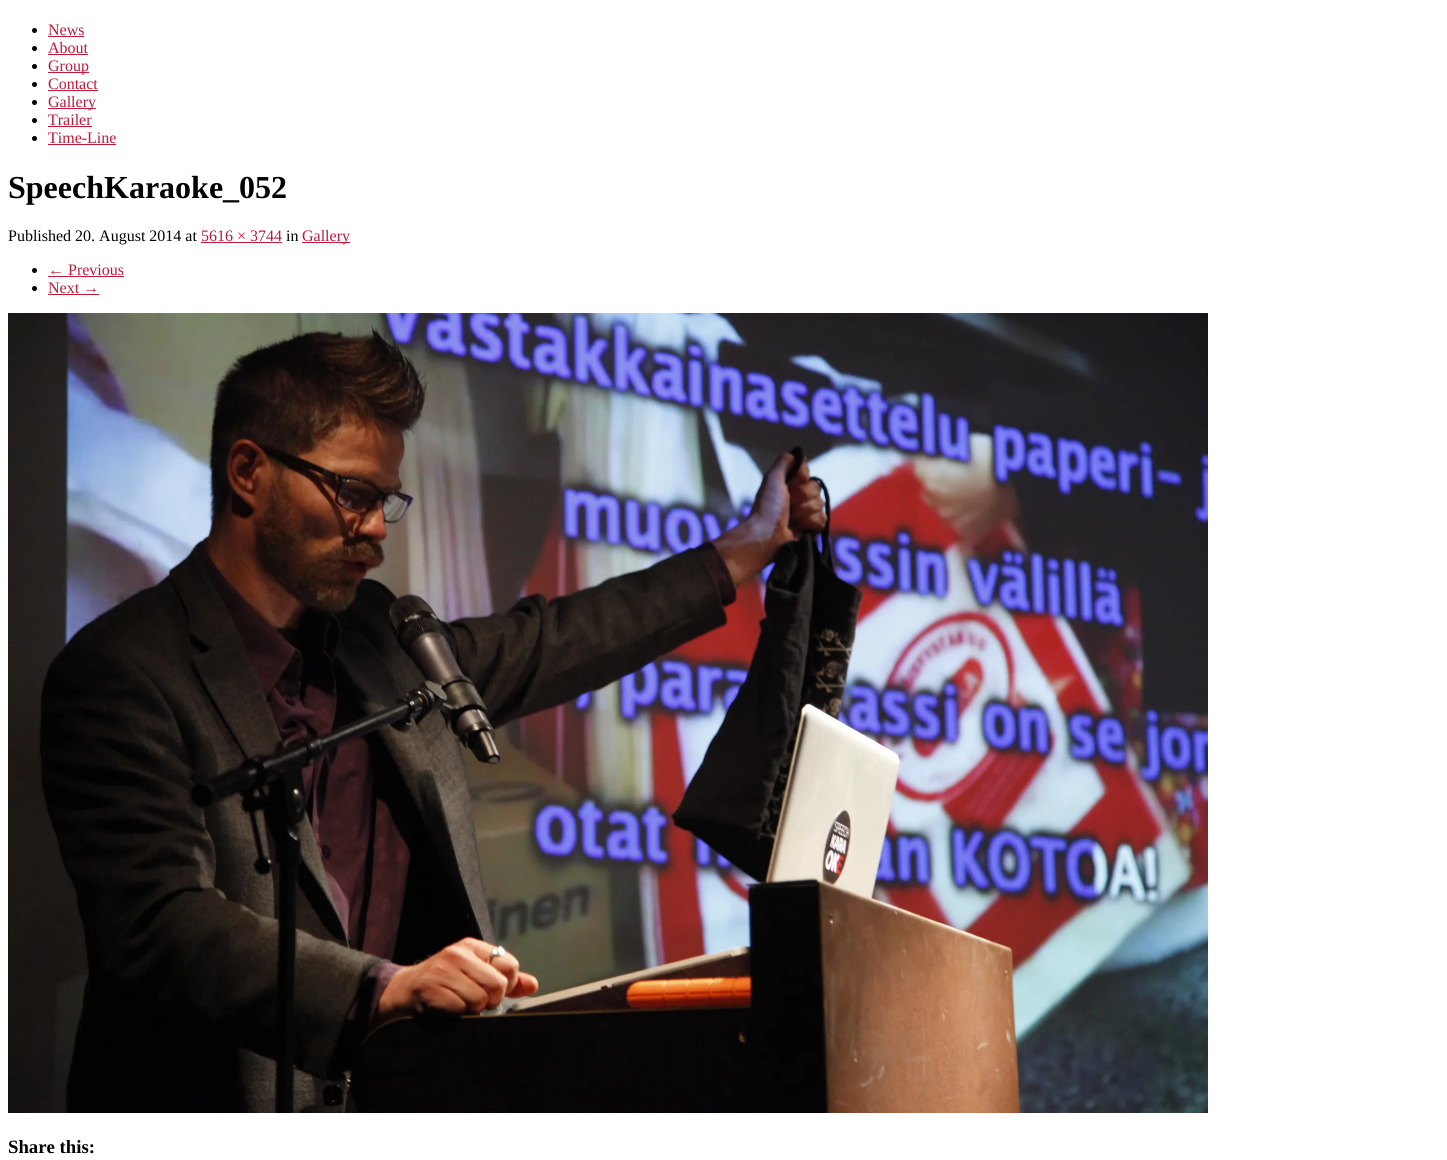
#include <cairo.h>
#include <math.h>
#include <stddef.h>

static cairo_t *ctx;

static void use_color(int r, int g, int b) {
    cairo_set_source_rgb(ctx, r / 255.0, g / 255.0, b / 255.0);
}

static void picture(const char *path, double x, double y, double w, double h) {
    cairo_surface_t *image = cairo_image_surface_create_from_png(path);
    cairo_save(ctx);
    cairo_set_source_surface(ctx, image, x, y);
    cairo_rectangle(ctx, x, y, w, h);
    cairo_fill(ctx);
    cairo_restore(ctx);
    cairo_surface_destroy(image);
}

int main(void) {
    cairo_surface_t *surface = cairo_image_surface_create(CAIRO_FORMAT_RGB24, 1447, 1160);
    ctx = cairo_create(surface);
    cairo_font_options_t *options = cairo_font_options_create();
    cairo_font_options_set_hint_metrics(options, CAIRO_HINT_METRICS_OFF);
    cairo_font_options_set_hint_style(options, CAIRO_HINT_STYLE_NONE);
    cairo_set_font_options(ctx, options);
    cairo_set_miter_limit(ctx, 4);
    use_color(255, 255, 255);
    cairo_paint(ctx);
    use_color(0, 0, 0);
    cairo_arc(ctx, 34.5, 30.5, 2.5, 0, 2 * M_PI);
    cairo_fill(ctx);
    cairo_select_font_face(ctx, "Liberation Serif", CAIRO_FONT_SLANT_NORMAL, CAIRO_FONT_WEIGHT_NORMAL);
    cairo_set_font_size(ctx, 16);
    use_color(188, 26, 58);
    cairo_move_to(ctx, 48, 35);
    cairo_show_text(ctx, "News");
    cairo_rectangle(ctx, 48, 36, 36, 1);
    cairo_fill(ctx);
    use_color(0, 0, 0);
    cairo_arc(ctx, 34.5, 48.5, 2.5, 0, 2 * M_PI);
    cairo_fill(ctx);
    use_color(188, 26, 58);
    cairo_move_to(ctx, 48, 53);
    cairo_show_text(ctx, "About");
    cairo_rectangle(ctx, 48, 54, 40, 1);
    cairo_fill(ctx);
    use_color(0, 0, 0);
    cairo_arc(ctx, 34.5, 66.5, 2.5, 0, 2 * M_PI);
    cairo_fill(ctx);
    use_color(188, 26, 58);
    cairo_rectangle(ctx, 48, 72, 41, 1);
    cairo_fill(ctx);
    cairo_move_to(ctx, 48, 71);
    cairo_show_text(ctx, "Group");
    use_color(0, 0, 0);
    cairo_new_path(ctx);
    cairo_arc(ctx, 34.5, 84.5, 2.5, 0, 2 * M_PI);
    cairo_fill(ctx);
    use_color(188, 26, 58);
    cairo_move_to(ctx, 48, 89);
    cairo_show_text(ctx, "Contact");
    cairo_rectangle(ctx, 48, 90, 50, 1);
    cairo_fill(ctx);
    use_color(0, 0, 0);
    cairo_arc(ctx, 34.5, 102.5, 2.5, 0, 2 * M_PI);
    cairo_fill(ctx);
    use_color(188, 26, 58);
    cairo_rectangle(ctx, 48, 108, 48, 1);
    cairo_fill(ctx);
    cairo_move_to(ctx, 48, 107);
    cairo_show_text(ctx, "Gallery");
    use_color(0, 0, 0);
    cairo_new_path(ctx);
    cairo_arc(ctx, 34.5, 120.5, 2.5, 0, 2 * M_PI);
    cairo_fill(ctx);
    use_color(188, 26, 58);
    cairo_move_to(ctx, 48, 125);
    cairo_show_text(ctx, "Trailer");
    cairo_rectangle(ctx, 48, 126, 44, 1);
    cairo_fill(ctx);
    use_color(0, 0, 0);
    cairo_arc(ctx, 34.5, 138.5, 2.5, 0, 2 * M_PI);
    cairo_fill(ctx);
    use_color(188, 26, 58);
    cairo_move_to(ctx, 48, 143);
    cairo_show_text(ctx, "Time-Line");
    cairo_rectangle(ctx, 48, 144, 68, 1);
    cairo_fill(ctx);
    cairo_select_font_face(ctx, "Liberation Serif", CAIRO_FONT_SLANT_NORMAL, CAIRO_FONT_WEIGHT_BOLD);
    cairo_set_font_size(ctx, 32);
    use_color(0, 0, 0);
    cairo_move_to(ctx, 8, 198);
    cairo_show_text(ctx, "SpeechKaraoke_052");
    cairo_select_font_face(ctx, "Liberation Serif", CAIRO_FONT_SLANT_NORMAL, CAIRO_FONT_WEIGHT_NORMAL);
    cairo_set_font_size(ctx, 16);
    cairo_move_to(ctx, 8, 241);
    cairo_show_text(ctx, "Published 20. August 2014 at");
    use_color(188, 26, 58);
    cairo_move_to(ctx, 201, 241);
    cairo_show_text(ctx, "5616 × 3744");
    cairo_rectangle(ctx, 201, 242, 81, 1);
    cairo_fill(ctx);
    use_color(0, 0, 0);
    cairo_move_to(ctx, 286, 241);
    cairo_show_text(ctx, "in");
    use_color(188, 26, 58);
    cairo_rectangle(ctx, 302, 242, 48, 1);
    cairo_fill(ctx);
    cairo_move_to(ctx, 302, 241);
    cairo_show_text(ctx, "Gallery");
    use_color(0, 0, 0);
    cairo_new_path(ctx);
    cairo_arc(ctx, 34.5, 270.5, 2.5, 0, 2 * M_PI);
    cairo_fill(ctx);
    use_color(188, 26, 58);
    cairo_move_to(ctx, 48, 275);
    cairo_show_text(ctx, "← Previous");
    cairo_rectangle(ctx, 48, 276, 76, 1);
    cairo_fill(ctx);
    use_color(0, 0, 0);
    cairo_arc(ctx, 34.5, 288.5, 2.5, 0, 2 * M_PI);
    cairo_fill(ctx);
    use_color(188, 26, 58);
    cairo_move_to(ctx, 48, 293);
    cairo_show_text(ctx, "Next →");
    cairo_rectangle(ctx, 48, 294, 51, 1);
    cairo_fill(ctx);
    picture("img1.png", 8, 313, 1200, 800);
    cairo_select_font_face(ctx, "Liberation Serif", CAIRO_FONT_SLANT_NORMAL, CAIRO_FONT_WEIGHT_BOLD);
    cairo_set_font_size(ctx, 18.75);
    use_color(0, 0, 0);
    cairo_move_to(ctx, 8, 1153);
    cairo_show_text(ctx, "Share this:");
    cairo_surface_write_to_png(surface, "result.png");
    cairo_font_options_destroy(options);
    cairo_destroy(ctx);
    cairo_surface_destroy(surface);
    return 0;
}
